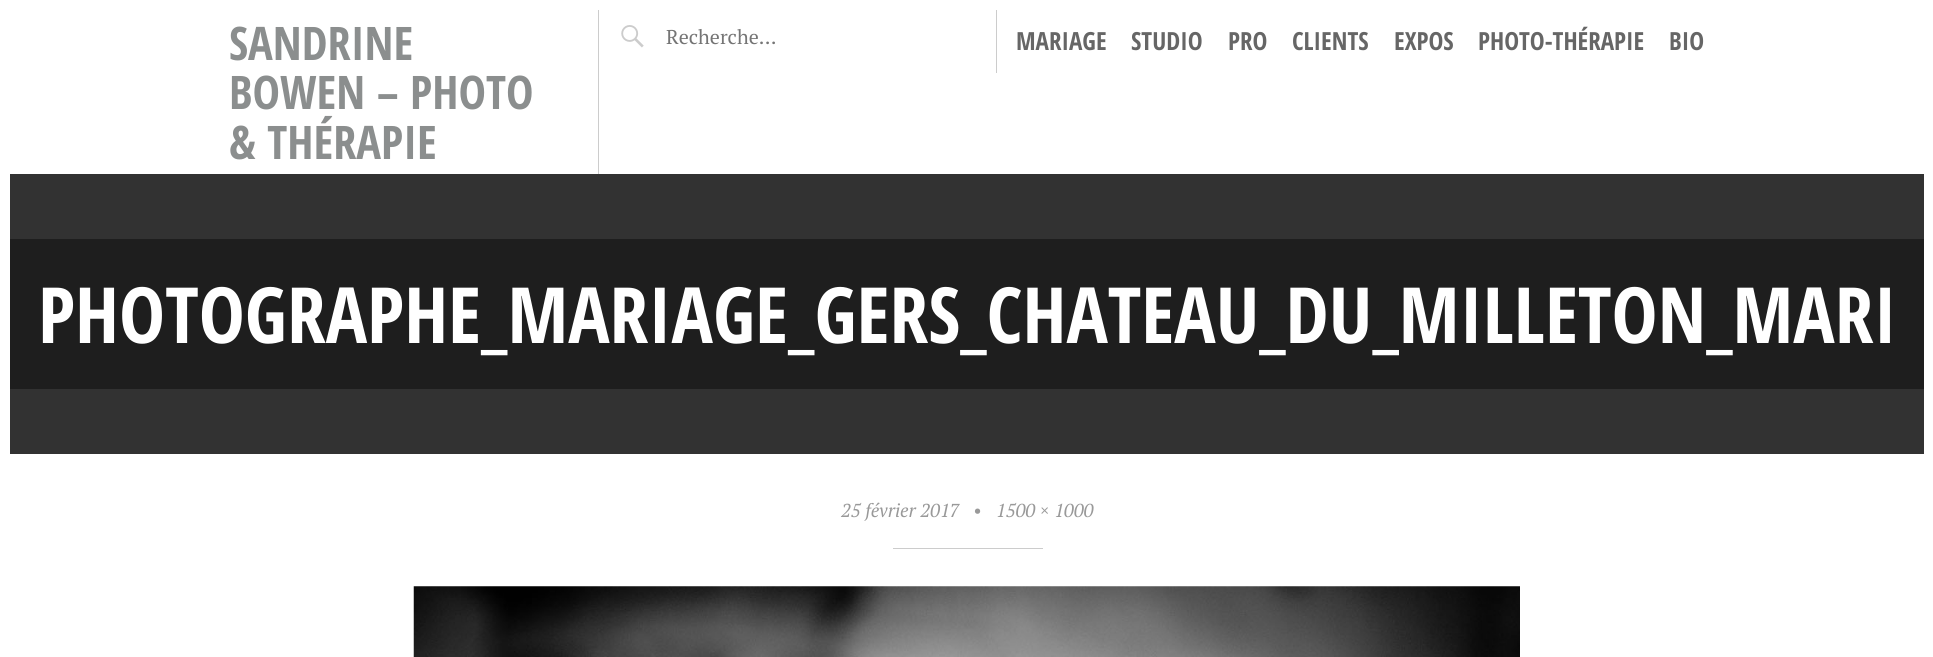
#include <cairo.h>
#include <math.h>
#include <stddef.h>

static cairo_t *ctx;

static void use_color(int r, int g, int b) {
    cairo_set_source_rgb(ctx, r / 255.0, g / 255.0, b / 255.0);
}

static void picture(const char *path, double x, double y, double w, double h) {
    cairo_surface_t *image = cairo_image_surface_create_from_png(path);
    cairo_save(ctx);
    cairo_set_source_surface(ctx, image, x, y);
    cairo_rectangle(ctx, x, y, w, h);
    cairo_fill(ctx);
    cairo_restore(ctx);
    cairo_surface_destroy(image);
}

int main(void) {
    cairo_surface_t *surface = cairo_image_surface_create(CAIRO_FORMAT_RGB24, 1933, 657);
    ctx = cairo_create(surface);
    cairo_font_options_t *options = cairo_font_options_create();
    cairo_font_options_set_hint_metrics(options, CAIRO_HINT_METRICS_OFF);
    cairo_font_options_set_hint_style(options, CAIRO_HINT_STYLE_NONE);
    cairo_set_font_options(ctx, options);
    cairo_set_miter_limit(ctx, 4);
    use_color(255, 255, 255);
    cairo_paint(ctx);
    use_color(204, 204, 204);
    cairo_rectangle(ctx, 598, 10, 1, 164);
    cairo_fill(ctx);
    cairo_select_font_face(ctx, "Open Sans Condensed", CAIRO_FONT_SLANT_NORMAL, CAIRO_FONT_WEIGHT_BOLD);
    cairo_set_font_size(ctx, 46.25);
    use_color(139, 142, 142);
    cairo_move_to(ctx, 229, 60);
    cairo_show_text(ctx, "SANDRINE");
    cairo_move_to(ctx, 229, 109);
    cairo_show_text(ctx, "BOWEN – PHOTO");
    cairo_move_to(ctx, 229, 159);
    cairo_show_text(ctx, "& THÉRAPIE");
    picture("img1.png", 621, 25, 23, 23);
    cairo_select_font_face(ctx, "PT Serif", CAIRO_FONT_SLANT_NORMAL, CAIRO_FONT_WEIGHT_NORMAL);
    cairo_set_font_size(ctx, 20);
    use_color(117, 117, 117);
    cairo_move_to(ctx, 666, 44);
    cairo_show_text(ctx, "Recherche…");
    use_color(204, 204, 204);
    cairo_rectangle(ctx, 996, 10, 1, 63);
    cairo_fill(ctx);
    cairo_select_font_face(ctx, "Open Sans Condensed", CAIRO_FONT_SLANT_NORMAL, CAIRO_FONT_WEIGHT_BOLD);
    cairo_set_font_size(ctx, 25);
    use_color(102, 102, 102);
    cairo_move_to(ctx, 1016, 50);
    cairo_show_text(ctx, "MARIAGE");
    cairo_move_to(ctx, 1131, 50);
    cairo_show_text(ctx, "STUDIO");
    cairo_move_to(ctx, 1228, 50);
    cairo_show_text(ctx, "PRO");
    cairo_move_to(ctx, 1292, 50);
    cairo_show_text(ctx, "CLIENTS");
    cairo_move_to(ctx, 1394, 50);
    cairo_show_text(ctx, "EXPOS");
    cairo_move_to(ctx, 1478, 50);
    cairo_show_text(ctx, "PHOTO-THÉRAPIE");
    cairo_move_to(ctx, 1669, 50);
    cairo_show_text(ctx, "BIO");
    use_color(30, 30, 30);
    cairo_rectangle(ctx, 10, 239, 1914, 150);
    cairo_fill(ctx);
    use_color(50, 50, 50);
    cairo_rectangle(ctx, 10, 174, 1914, 65);
    cairo_fill(ctx);
    cairo_rectangle(ctx, 10, 389, 1914, 65);
    cairo_fill(ctx);
    cairo_set_font_size(ctx, 77.5);
    use_color(255, 255, 255);
    cairo_move_to(ctx, 38, 343);
    cairo_show_text(ctx, "PHOTOGRAPHE_MARIAGE_GERS_CHATEAU_DU_MILLETON_MARI");
    cairo_select_font_face(ctx, "PT Serif", CAIRO_FONT_SLANT_ITALIC, CAIRO_FONT_WEIGHT_NORMAL);
    cairo_set_font_size(ctx, 18.75);
    use_color(153, 153, 153);
    cairo_move_to(ctx, 841, 517);
    cairo_show_text(ctx, "25 février 2017");
    cairo_move_to(ctx, 973, 517);
    cairo_show_text(ctx, "•");
    cairo_move_to(ctx, 996, 517);
    cairo_show_text(ctx, "1500 × 1000");
    use_color(204, 204, 204);
    cairo_rectangle(ctx, 893, 548, 150, 1);
    cairo_fill(ctx);
    picture("img2.png", 413, 586, 1107, 71);
    cairo_surface_write_to_png(surface, "result.png");
    cairo_font_options_destroy(options);
    cairo_destroy(ctx);
    cairo_surface_destroy(surface);
    return 0;
}
